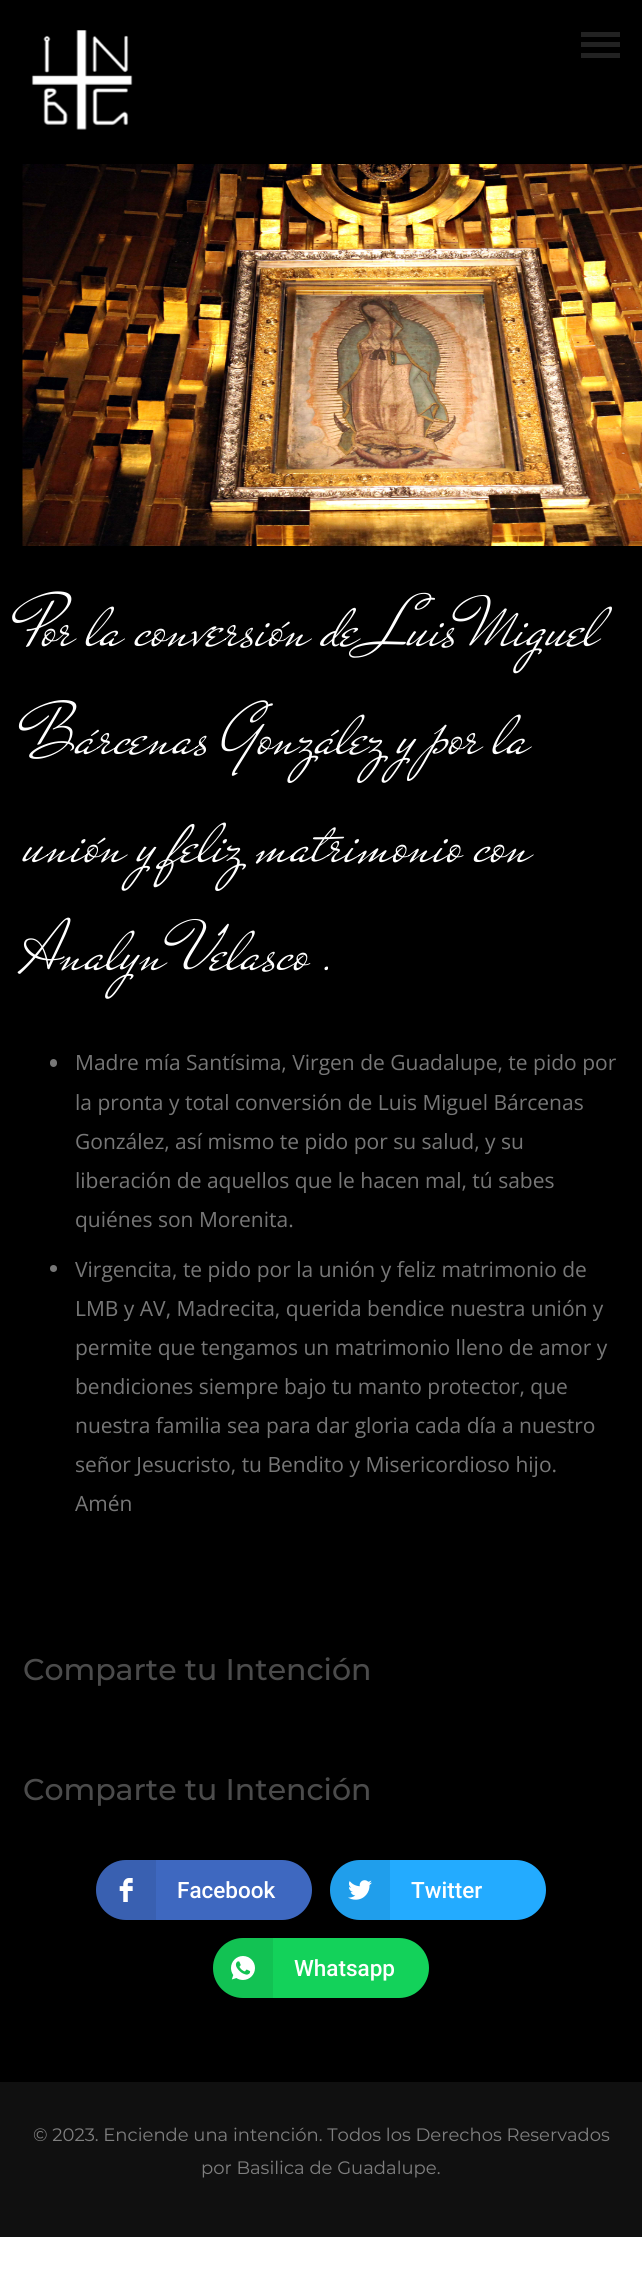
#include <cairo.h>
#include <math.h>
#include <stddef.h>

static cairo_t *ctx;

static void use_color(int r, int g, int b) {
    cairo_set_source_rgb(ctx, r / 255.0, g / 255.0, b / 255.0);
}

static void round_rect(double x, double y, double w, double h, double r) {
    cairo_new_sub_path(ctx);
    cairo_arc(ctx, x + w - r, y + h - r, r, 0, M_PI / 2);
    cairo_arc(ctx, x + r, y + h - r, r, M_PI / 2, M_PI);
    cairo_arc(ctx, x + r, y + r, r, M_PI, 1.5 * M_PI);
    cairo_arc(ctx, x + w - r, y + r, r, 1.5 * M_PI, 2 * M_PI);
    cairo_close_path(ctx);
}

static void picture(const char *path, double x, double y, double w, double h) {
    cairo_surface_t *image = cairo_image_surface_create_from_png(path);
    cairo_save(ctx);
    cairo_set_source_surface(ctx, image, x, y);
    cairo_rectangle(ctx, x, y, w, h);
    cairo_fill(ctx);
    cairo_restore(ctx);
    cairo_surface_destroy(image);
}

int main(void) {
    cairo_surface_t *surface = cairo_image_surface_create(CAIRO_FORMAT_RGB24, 642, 2279);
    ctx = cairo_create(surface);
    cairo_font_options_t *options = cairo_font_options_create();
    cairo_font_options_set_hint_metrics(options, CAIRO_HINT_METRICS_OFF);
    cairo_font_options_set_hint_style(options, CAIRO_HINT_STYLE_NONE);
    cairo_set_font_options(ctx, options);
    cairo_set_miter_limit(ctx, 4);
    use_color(255, 255, 255);
    cairo_paint(ctx);
    use_color(0, 0, 0);
    cairo_rectangle(ctx, 0, 0, 642, 2082);
    cairo_fill(ctx);
    picture("img1.png", 31, 30, 102, 100);
    use_color(34, 34, 34);
    cairo_rectangle(ctx, 581, 32, 39, 5);
    cairo_fill(ctx);
    cairo_rectangle(ctx, 581, 42, 39, 5);
    cairo_fill(ctx);
    cairo_rectangle(ctx, 581, 53, 39, 5);
    cairo_fill(ctx);
    picture("img2.png", 22, 164, 620, 382);
    cairo_select_font_face(ctx, "Mr De Haviland", CAIRO_FONT_SLANT_NORMAL, CAIRO_FONT_WEIGHT_NORMAL);
    cairo_set_font_size(ctx, 72);
    use_color(255, 255, 255);
    cairo_move_to(ctx, 23, 645);
    cairo_show_text(ctx, "Por la conversión de Luis Miguel");
    cairo_move_to(ctx, 23, 753);
    cairo_show_text(ctx, "Bárcenas González y por la");
    cairo_move_to(ctx, 23, 861);
    cairo_show_text(ctx, "unión y feliz matrimonio con");
    cairo_move_to(ctx, 23, 969);
    cairo_show_text(ctx, "Analyn Velasco .");
    use_color(119, 119, 119);
    round_rect(50, 1059, 7, 8, 3.5);
    cairo_fill(ctx);
    cairo_select_font_face(ctx, "Open Sans", CAIRO_FONT_SLANT_NORMAL, CAIRO_FONT_WEIGHT_NORMAL);
    cairo_set_font_size(ctx, 21);
    cairo_move_to(ctx, 75, 1070);
    cairo_show_text(ctx, "Madre mía Santísima, Virgen de Guadalupe, te pido por");
    cairo_move_to(ctx, 75, 1110);
    cairo_show_text(ctx, "la pronta y total conversión de Luis Miguel Bárcenas");
    cairo_move_to(ctx, 75, 1149);
    cairo_show_text(ctx, "González, así mismo te pido por su salud, y su");
    cairo_move_to(ctx, 75, 1188);
    cairo_show_text(ctx, "liberación de aquellos que le hacen mal, tú sabes");
    cairo_move_to(ctx, 75, 1227);
    cairo_show_text(ctx, "quiénes son Morenita.");
    cairo_new_path(ctx);
    cairo_arc(ctx, 53.5, 1268.5, 3.5, 0, 2 * M_PI);
    cairo_fill(ctx);
    cairo_move_to(ctx, 75, 1277);
    cairo_show_text(ctx, "Virgencita, te pido por la unión y feliz matrimonio de");
    cairo_move_to(ctx, 75, 1316);
    cairo_show_text(ctx, "LMB y AV, Madrecita, querida bendice nuestra unión y");
    cairo_move_to(ctx, 75, 1355);
    cairo_show_text(ctx, "permite que tengamos un matrimonio lleno de amor y");
    cairo_move_to(ctx, 75, 1394);
    cairo_show_text(ctx, "bendiciones siempre bajo tu manto protector, que");
    cairo_move_to(ctx, 75, 1433);
    cairo_show_text(ctx, "nuestra familia sea para dar gloria cada día a nuestro");
    cairo_move_to(ctx, 75, 1472);
    cairo_show_text(ctx, "señor Jesucristo, tu Bendito y Misericordioso hijo.");
    cairo_move_to(ctx, 75, 1511);
    cairo_show_text(ctx, "Amén");
    cairo_select_font_face(ctx, "Montserrat Medium", CAIRO_FONT_SLANT_NORMAL, CAIRO_FONT_WEIGHT_NORMAL);
    cairo_set_font_size(ctx, 30);
    use_color(75, 75, 75);
    cairo_move_to(ctx, 23, 1680);
    cairo_show_text(ctx, "Comparte tu Intención");
    cairo_move_to(ctx, 23, 1800);
    cairo_show_text(ctx, "Comparte tu Intención");
    use_color(62, 104, 192);
    round_rect(96, 1860, 216, 60, 30);
    cairo_fill(ctx);
    cairo_set_source_rgba(ctx, 0, 0, 0, 0.08);
    cairo_new_path(ctx);
    cairo_move_to(ctx, 126, 1860);
    cairo_line_to(ctx, 156, 1860);
    cairo_line_to(ctx, 156, 1920);
    cairo_line_to(ctx, 126, 1920);
    cairo_curve_to(ctx, 109.5, 1920, 96, 1906.5, 96, 1890);
    cairo_curve_to(ctx, 96, 1873.5, 109.5, 1860, 126, 1860);
    cairo_close_path(ctx);
    cairo_fill(ctx);
    picture("img3.png", 119, 1878, 14, 24);
    cairo_select_font_face(ctx, "Roboto Medium", CAIRO_FONT_SLANT_NORMAL, CAIRO_FONT_WEIGHT_NORMAL);
    cairo_set_font_size(ctx, 22.5);
    use_color(255, 255, 255);
    cairo_move_to(ctx, 177, 1898);
    cairo_show_text(ctx, "Facebook");
    use_color(35, 171, 255);
    round_rect(330, 1860, 216, 60, 30);
    cairo_fill(ctx);
    cairo_set_source_rgba(ctx, 0, 0, 0, 0.08);
    cairo_new_path(ctx);
    cairo_move_to(ctx, 360, 1860);
    cairo_line_to(ctx, 390, 1860);
    cairo_line_to(ctx, 390, 1920);
    cairo_line_to(ctx, 360, 1920);
    cairo_curve_to(ctx, 343.5, 1920, 330, 1906.5, 330, 1890);
    cairo_curve_to(ctx, 330, 1873.5, 343.5, 1860, 360, 1860);
    cairo_close_path(ctx);
    cairo_fill(ctx);
    picture("img4.png", 348, 1880, 24, 20);
    use_color(255, 255, 255);
    cairo_move_to(ctx, 411, 1898);
    cairo_show_text(ctx, "Twitter");
    use_color(19, 210, 90);
    round_rect(213, 1938, 216, 60, 30);
    cairo_fill(ctx);
    cairo_set_source_rgba(ctx, 0, 0, 0, 0.08);
    cairo_new_path(ctx);
    cairo_move_to(ctx, 243, 1938);
    cairo_line_to(ctx, 273, 1938);
    cairo_line_to(ctx, 273, 1998);
    cairo_line_to(ctx, 243, 1998);
    cairo_curve_to(ctx, 226.5, 1998, 213, 1984.5, 213, 1968);
    cairo_curve_to(ctx, 213, 1951.5, 226.5, 1938, 243, 1938);
    cairo_close_path(ctx);
    cairo_fill(ctx);
    picture("img5.png", 231, 1956, 24, 24);
    use_color(255, 255, 255);
    cairo_move_to(ctx, 294, 1976);
    cairo_show_text(ctx, "Whatsapp");
    use_color(16, 16, 16);
    cairo_rectangle(ctx, 0, 2082, 642, 155);
    cairo_fill(ctx);
    cairo_select_font_face(ctx, "Montserrat", CAIRO_FONT_SLANT_NORMAL, CAIRO_FONT_WEIGHT_NORMAL);
    cairo_set_font_size(ctx, 18);
    use_color(127, 127, 127);
    cairo_move_to(ctx, 33, 2141);
    cairo_show_text(ctx, "© 2023. Enciende una intención. Todos los Derechos Reservados");
    cairo_move_to(ctx, 201, 2174);
    cairo_show_text(ctx, "por Basilica de Guadalupe.");
    cairo_surface_write_to_png(surface, "result.png");
    cairo_font_options_destroy(options);
    cairo_destroy(ctx);
    cairo_surface_destroy(surface);
    return 0;
}
